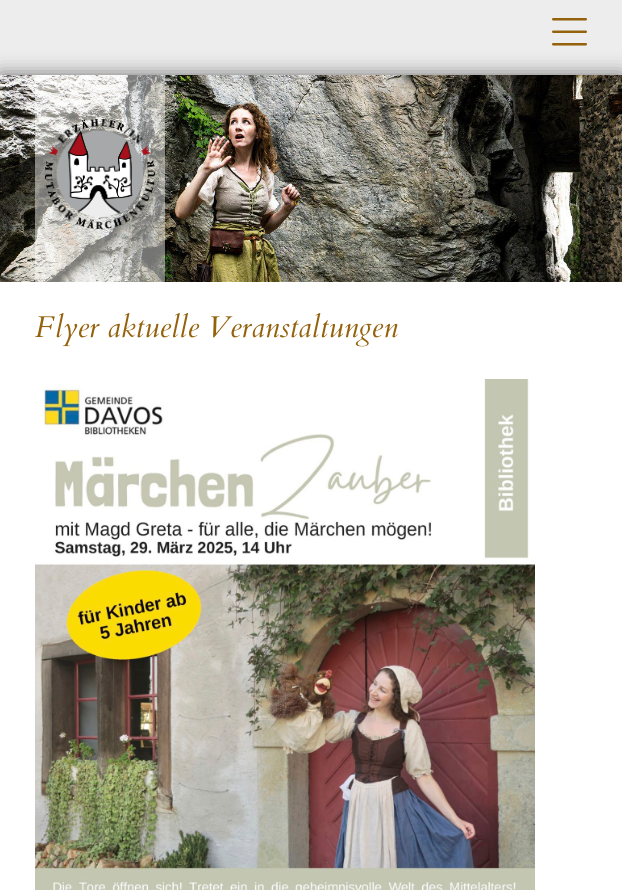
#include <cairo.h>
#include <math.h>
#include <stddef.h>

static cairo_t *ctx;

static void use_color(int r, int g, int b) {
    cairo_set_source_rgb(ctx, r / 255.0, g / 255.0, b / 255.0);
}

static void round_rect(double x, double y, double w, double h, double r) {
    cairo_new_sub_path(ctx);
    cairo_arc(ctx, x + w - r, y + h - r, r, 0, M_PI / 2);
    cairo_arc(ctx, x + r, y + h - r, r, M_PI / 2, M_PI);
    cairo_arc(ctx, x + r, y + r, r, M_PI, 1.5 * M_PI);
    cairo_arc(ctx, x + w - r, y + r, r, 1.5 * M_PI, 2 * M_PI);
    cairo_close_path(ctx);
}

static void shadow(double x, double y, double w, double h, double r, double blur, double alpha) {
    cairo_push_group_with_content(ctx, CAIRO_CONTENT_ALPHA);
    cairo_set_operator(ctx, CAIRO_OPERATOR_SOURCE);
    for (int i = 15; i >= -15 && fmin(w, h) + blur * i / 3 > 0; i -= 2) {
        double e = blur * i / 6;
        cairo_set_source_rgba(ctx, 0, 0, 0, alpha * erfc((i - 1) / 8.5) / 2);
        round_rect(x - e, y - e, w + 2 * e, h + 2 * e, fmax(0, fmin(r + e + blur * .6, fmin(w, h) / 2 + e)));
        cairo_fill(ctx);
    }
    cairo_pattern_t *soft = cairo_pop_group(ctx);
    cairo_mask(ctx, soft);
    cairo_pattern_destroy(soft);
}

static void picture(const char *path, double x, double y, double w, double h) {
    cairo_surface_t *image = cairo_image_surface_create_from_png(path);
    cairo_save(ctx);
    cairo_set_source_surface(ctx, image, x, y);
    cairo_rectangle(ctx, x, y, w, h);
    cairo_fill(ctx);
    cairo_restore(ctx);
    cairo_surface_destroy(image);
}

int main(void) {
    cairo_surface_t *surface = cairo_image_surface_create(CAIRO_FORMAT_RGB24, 622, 890);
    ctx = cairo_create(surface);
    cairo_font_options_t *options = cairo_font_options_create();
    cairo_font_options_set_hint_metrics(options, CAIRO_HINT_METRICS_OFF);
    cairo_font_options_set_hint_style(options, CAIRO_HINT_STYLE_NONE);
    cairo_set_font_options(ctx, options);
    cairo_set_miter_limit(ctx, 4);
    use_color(237, 237, 237);
    cairo_paint(ctx);
    use_color(100, 100, 100);
    shadow(0, 75, 622, 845, 0, 10, 0.9);
    use_color(255, 255, 255);
    cairo_rectangle(ctx, 0, 282, 622, 608);
    cairo_fill(ctx);
    picture("img1.png", 552, 18, 35, 28);
    picture("img2.png", 0, 75, 622, 207);
    cairo_set_source_rgba(ctx, 1, 1, 1, 0.45);
    cairo_rectangle(ctx, 35, 75, 130, 207);
    cairo_fill(ctx);
    picture("img3.png", 45, 119, 110, 110);
    cairo_select_font_face(ctx, "Cardo", CAIRO_FONT_SLANT_ITALIC, CAIRO_FONT_WEIGHT_NORMAL);
    cairo_set_font_size(ctx, 30);
    use_color(148, 98, 12);
    cairo_move_to(ctx, 35, 337);
    cairo_show_text(ctx, "Flyer aktuelle Veranstaltungen");
    picture("img4.png", 35, 379, 500, 511);
    cairo_surface_write_to_png(surface, "result.png");
    cairo_font_options_destroy(options);
    cairo_destroy(ctx);
    cairo_surface_destroy(surface);
    return 0;
}
